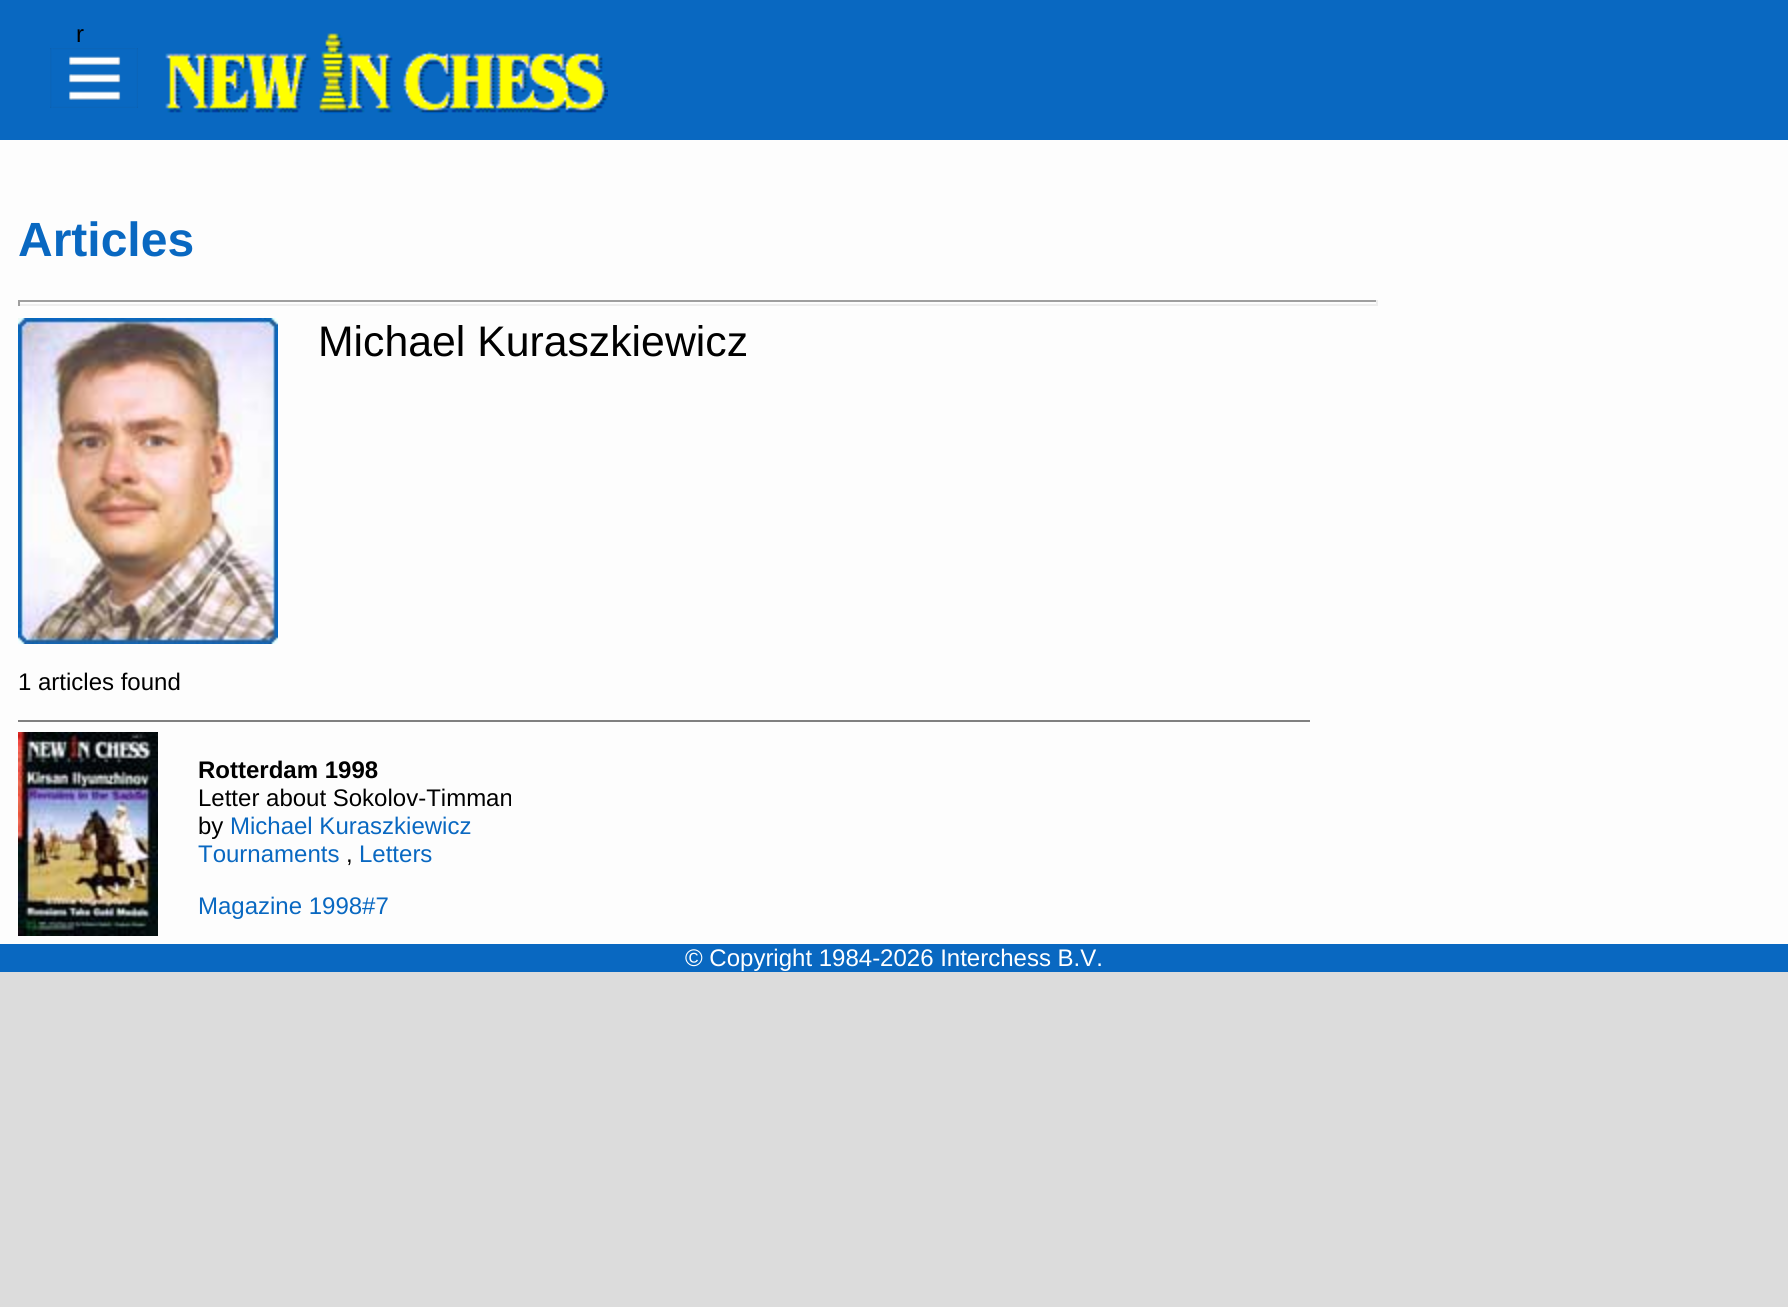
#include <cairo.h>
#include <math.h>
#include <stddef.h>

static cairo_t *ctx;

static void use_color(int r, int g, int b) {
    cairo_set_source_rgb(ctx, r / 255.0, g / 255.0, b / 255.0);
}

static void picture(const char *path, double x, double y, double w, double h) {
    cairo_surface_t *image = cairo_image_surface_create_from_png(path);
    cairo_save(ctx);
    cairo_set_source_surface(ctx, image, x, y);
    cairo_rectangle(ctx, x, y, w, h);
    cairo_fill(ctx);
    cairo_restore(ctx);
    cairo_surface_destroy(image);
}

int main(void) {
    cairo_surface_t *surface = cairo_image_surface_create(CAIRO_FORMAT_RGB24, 1788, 1307);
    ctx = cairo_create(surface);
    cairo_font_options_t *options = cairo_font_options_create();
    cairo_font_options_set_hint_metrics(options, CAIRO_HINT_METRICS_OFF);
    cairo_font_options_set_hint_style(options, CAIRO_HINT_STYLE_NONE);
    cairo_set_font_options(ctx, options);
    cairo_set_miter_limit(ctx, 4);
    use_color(220, 220, 220);
    cairo_paint(ctx);
    use_color(253, 253, 253);
    cairo_rectangle(ctx, 0, 140, 1788, 804);
    cairo_fill(ctx);
    use_color(9, 104, 193);
    cairo_rectangle(ctx, 0, 0, 1788, 140);
    cairo_fill(ctx);
    picture("img1.png", 165, 33, 443, 81);
    cairo_select_font_face(ctx, "Liberation Sans", CAIRO_FONT_SLANT_NORMAL, CAIRO_FONT_WEIGHT_NORMAL);
    cairo_set_font_size(ctx, 24);
    use_color(0, 0, 0);
    cairo_move_to(ctx, 76, 42);
    cairo_show_text(ctx, "r");
    picture("img2.png", 50, 48, 88, 60);
    cairo_select_font_face(ctx, "Liberation Sans", CAIRO_FONT_SLANT_NORMAL, CAIRO_FONT_WEIGHT_BOLD);
    cairo_set_font_size(ctx, 48);
    use_color(9, 104, 193);
    cairo_move_to(ctx, 18, 256);
    cairo_show_text(ctx, "Articles");
    use_color(159, 159, 159);
    cairo_rectangle(ctx, 18, 300, 1360, 2);
    cairo_fill(ctx);
    use_color(238, 238, 238);
    cairo_rectangle(ctx, 1376, 300, 2, 6);
    cairo_fill(ctx);
    cairo_rectangle(ctx, 18, 304, 1360, 2);
    cairo_fill(ctx);
    use_color(159, 159, 159);
    cairo_rectangle(ctx, 18, 300, 2, 6);
    cairo_fill(ctx);
    picture("img3.png", 18, 318, 260, 326);
    cairo_select_font_face(ctx, "Liberation Sans", CAIRO_FONT_SLANT_NORMAL, CAIRO_FONT_WEIGHT_NORMAL);
    cairo_set_font_size(ctx, 42.75);
    use_color(0, 0, 0);
    cairo_move_to(ctx, 318, 356);
    cairo_show_text(ctx, "Michael Kuraszkiewicz");
    cairo_set_font_size(ctx, 24);
    cairo_move_to(ctx, 18, 690);
    cairo_show_text(ctx, "1 articles found");
    use_color(128, 128, 128);
    cairo_rectangle(ctx, 18, 720, 1292, 2);
    cairo_fill(ctx);
    picture("img4.png", 18, 732, 140, 204);
    cairo_select_font_face(ctx, "Liberation Sans", CAIRO_FONT_SLANT_NORMAL, CAIRO_FONT_WEIGHT_BOLD);
    use_color(0, 0, 0);
    cairo_move_to(ctx, 198, 778);
    cairo_show_text(ctx, "Rotterdam 1998");
    cairo_select_font_face(ctx, "Liberation Sans", CAIRO_FONT_SLANT_NORMAL, CAIRO_FONT_WEIGHT_NORMAL);
    cairo_move_to(ctx, 198, 806);
    cairo_show_text(ctx, "Letter about Sokolov-Timman");
    cairo_move_to(ctx, 198, 834);
    cairo_show_text(ctx, "by");
    use_color(9, 104, 193);
    cairo_move_to(ctx, 230, 834);
    cairo_show_text(ctx, "Michael Kuraszkiewicz");
    cairo_move_to(ctx, 198, 862);
    cairo_show_text(ctx, "Tournaments");
    use_color(0, 0, 0);
    cairo_move_to(ctx, 346, 862);
    cairo_show_text(ctx, ",");
    use_color(9, 104, 193);
    cairo_move_to(ctx, 359, 862);
    cairo_show_text(ctx, "Letters");
    cairo_move_to(ctx, 198, 914);
    cairo_show_text(ctx, "Magazine 1998#7");
    cairo_rectangle(ctx, 0, 944, 1788, 28);
    cairo_fill(ctx);
    use_color(255, 255, 255);
    cairo_move_to(ctx, 685, 966);
    cairo_show_text(ctx, "© Copyright 1984-2026 Interchess B.V.");
    cairo_surface_write_to_png(surface, "result.png");
    cairo_font_options_destroy(options);
    cairo_destroy(ctx);
    cairo_surface_destroy(surface);
    return 0;
}
